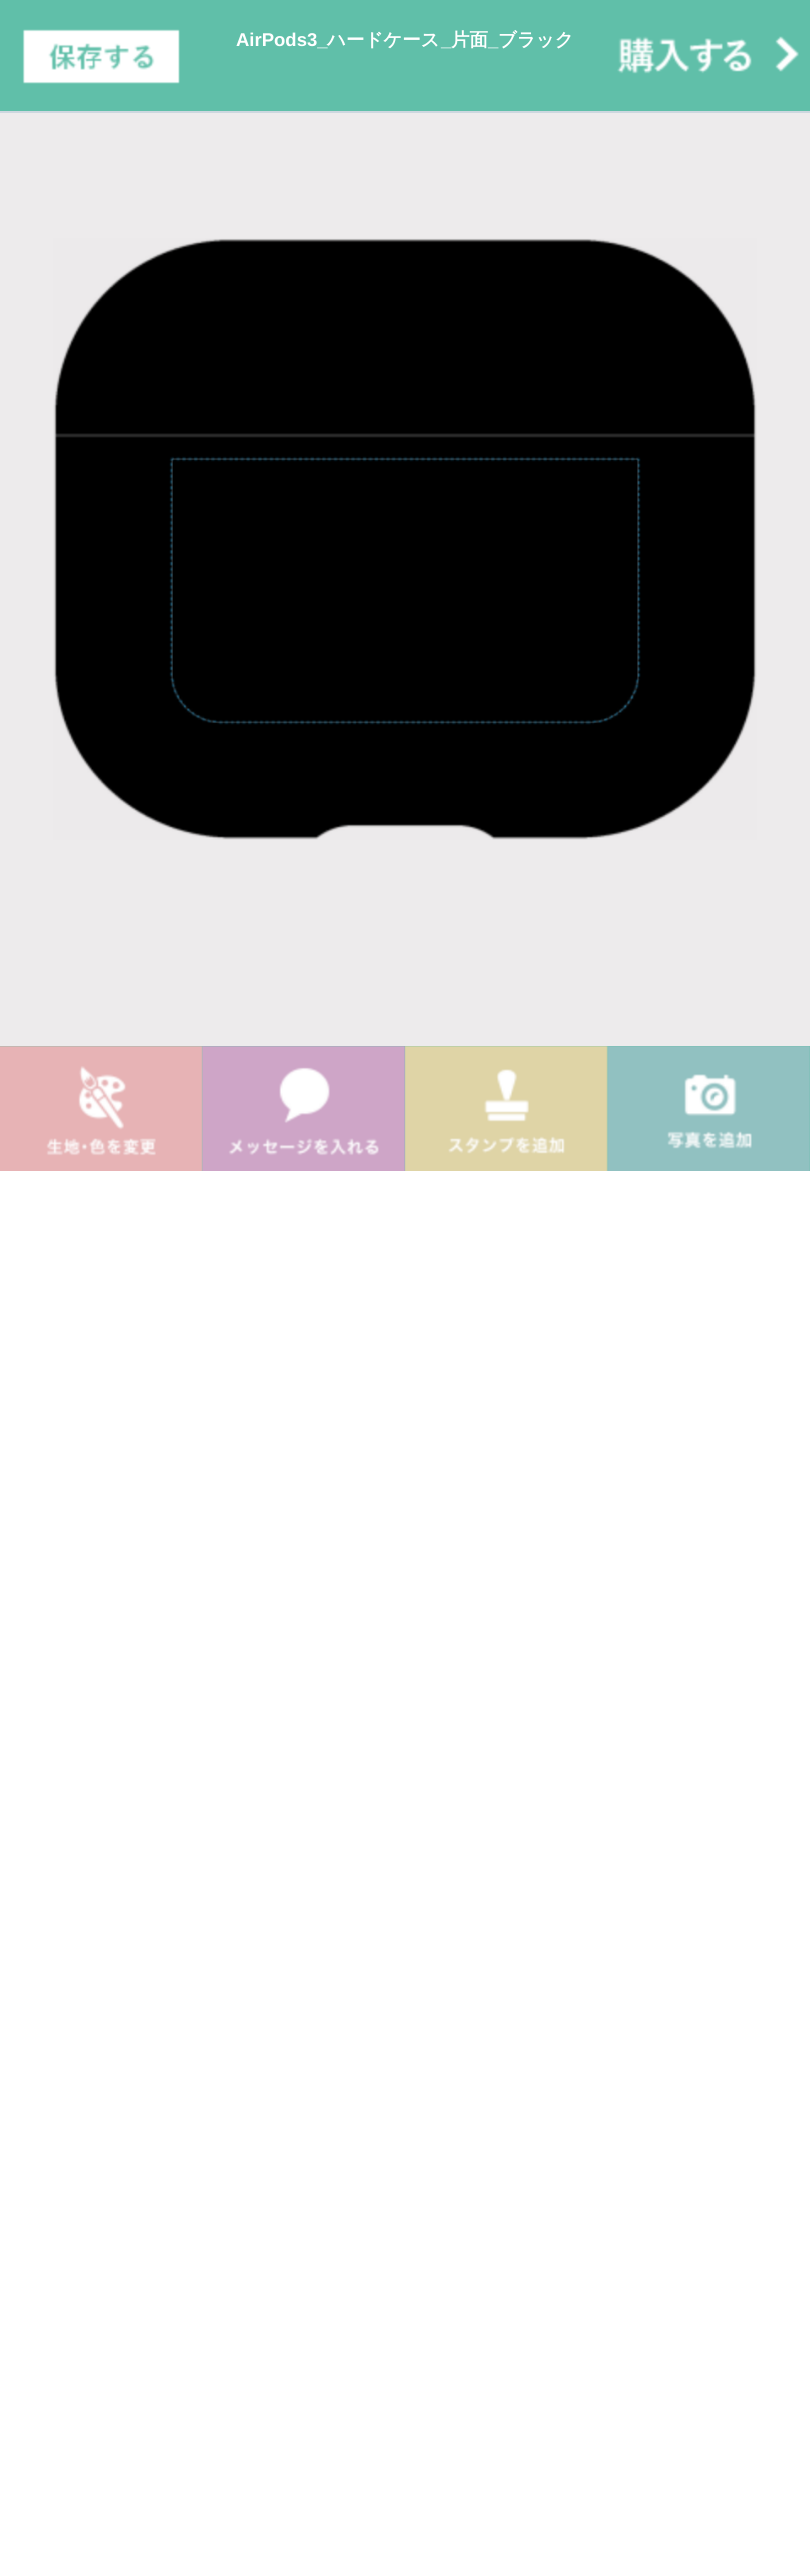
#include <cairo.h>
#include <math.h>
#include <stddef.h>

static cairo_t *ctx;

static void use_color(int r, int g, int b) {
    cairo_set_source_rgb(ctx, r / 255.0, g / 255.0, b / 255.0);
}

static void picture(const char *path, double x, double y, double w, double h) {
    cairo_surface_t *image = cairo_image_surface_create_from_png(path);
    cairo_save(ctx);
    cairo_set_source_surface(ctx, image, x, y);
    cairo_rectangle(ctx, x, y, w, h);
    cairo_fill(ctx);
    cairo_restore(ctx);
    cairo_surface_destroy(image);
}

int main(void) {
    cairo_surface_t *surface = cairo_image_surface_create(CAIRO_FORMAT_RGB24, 810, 2572);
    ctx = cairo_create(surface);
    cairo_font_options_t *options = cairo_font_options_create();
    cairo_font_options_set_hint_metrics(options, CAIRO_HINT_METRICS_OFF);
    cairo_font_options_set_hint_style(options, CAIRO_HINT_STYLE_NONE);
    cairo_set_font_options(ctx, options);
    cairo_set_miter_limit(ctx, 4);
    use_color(255, 255, 255);
    cairo_paint(ctx);
    use_color(237, 235, 236);
    cairo_rectangle(ctx, 0, 113, 810, 933);
    cairo_fill(ctx);
    use_color(96, 191, 169);
    cairo_rectangle(ctx, 0, 0, 810, 111);
    cairo_fill(ctx);
    use_color(205, 215, 223);
    cairo_rectangle(ctx, 0, 111, 810, 2);
    cairo_fill(ctx);
    picture("img1.png", 22, 29, 158, 55);
    cairo_select_font_face(ctx, "Liberation Sans", CAIRO_FONT_SLANT_NORMAL, CAIRO_FONT_WEIGHT_BOLD);
    cairo_set_font_size(ctx, 18.5);
    use_color(255, 255, 255);
    cairo_move_to(ctx, 236, 46);
    cairo_show_text(ctx, "AirPods3_");
    cairo_select_font_face(ctx, "WenQuanYi Zen Hei", CAIRO_FONT_SLANT_NORMAL, CAIRO_FONT_WEIGHT_BOLD);
    cairo_move_to(ctx, 327, 46);
    cairo_show_text(ctx, "ハードケース");
    cairo_select_font_face(ctx, "Liberation Sans", CAIRO_FONT_SLANT_NORMAL, CAIRO_FONT_WEIGHT_BOLD);
    cairo_move_to(ctx, 441, 46);
    cairo_show_text(ctx, "_");
    cairo_select_font_face(ctx, "WenQuanYi Zen Hei", CAIRO_FONT_SLANT_NORMAL, CAIRO_FONT_WEIGHT_BOLD);
    cairo_move_to(ctx, 451, 46);
    cairo_show_text(ctx, "片面");
    cairo_select_font_face(ctx, "Liberation Sans", CAIRO_FONT_SLANT_NORMAL, CAIRO_FONT_WEIGHT_BOLD);
    cairo_move_to(ctx, 488, 46);
    cairo_show_text(ctx, "_");
    cairo_select_font_face(ctx, "WenQuanYi Zen Hei", CAIRO_FONT_SLANT_NORMAL, CAIRO_FONT_WEIGHT_BOLD);
    cairo_move_to(ctx, 498, 46);
    cairo_show_text(ctx, "ブラック");
    picture("img2.png", 617, 36, 182, 38);
    picture("img3.png", 53, 238, 704, 602);
    use_color(96, 191, 169);
    cairo_rectangle(ctx, 0, 1046, 810, 125);
    cairo_fill(ctx);
    picture("img4.png", 0, 1046, 204, 125);
    picture("img5.png", 202, 1046, 204, 125);
    picture("img6.png", 405, 1046, 204, 125);
    picture("img7.png", 607, 1046, 203, 125);
    cairo_surface_write_to_png(surface, "result.png");
    cairo_font_options_destroy(options);
    cairo_destroy(ctx);
    cairo_surface_destroy(surface);
    return 0;
}
